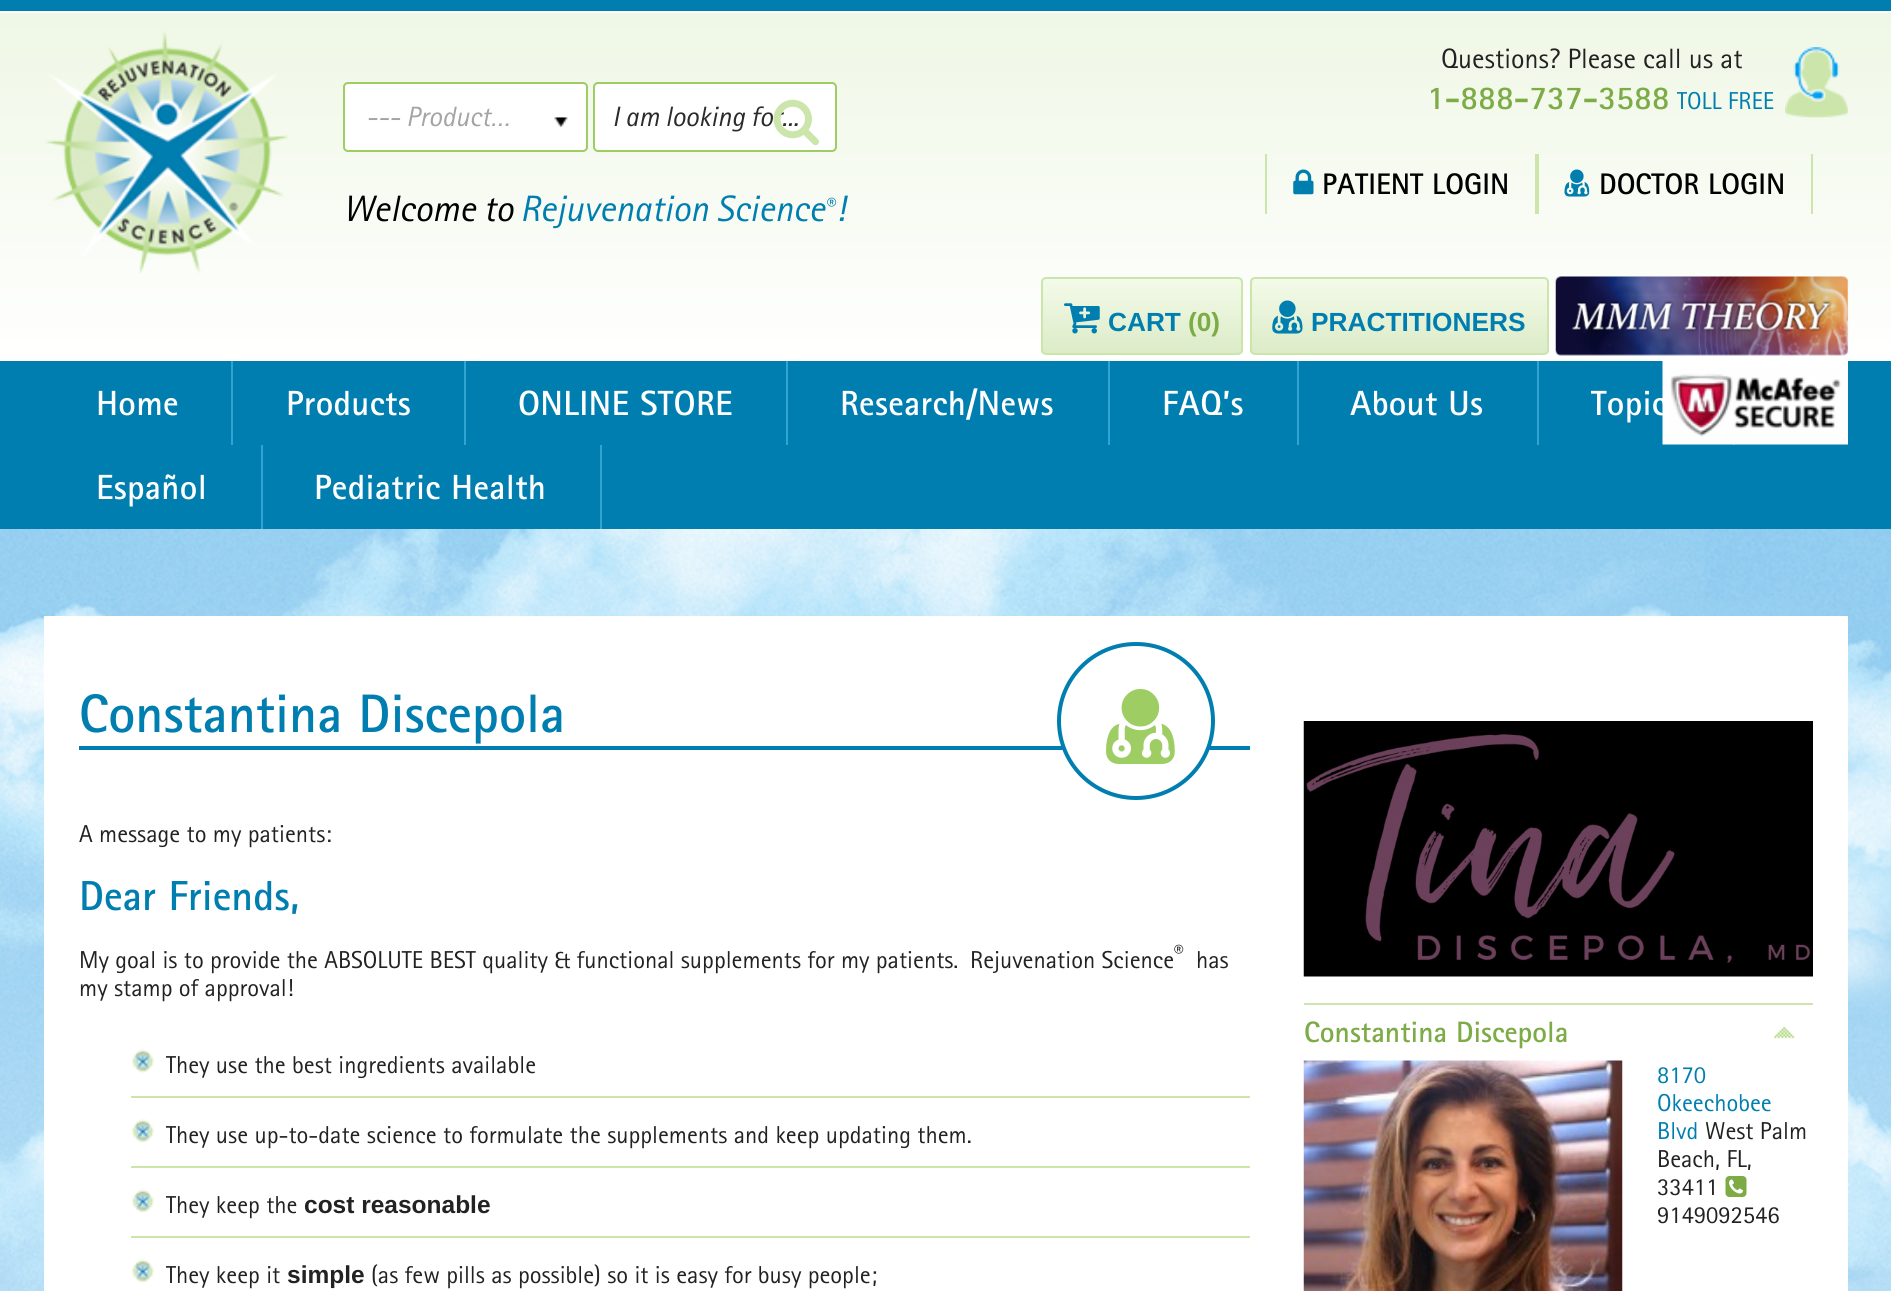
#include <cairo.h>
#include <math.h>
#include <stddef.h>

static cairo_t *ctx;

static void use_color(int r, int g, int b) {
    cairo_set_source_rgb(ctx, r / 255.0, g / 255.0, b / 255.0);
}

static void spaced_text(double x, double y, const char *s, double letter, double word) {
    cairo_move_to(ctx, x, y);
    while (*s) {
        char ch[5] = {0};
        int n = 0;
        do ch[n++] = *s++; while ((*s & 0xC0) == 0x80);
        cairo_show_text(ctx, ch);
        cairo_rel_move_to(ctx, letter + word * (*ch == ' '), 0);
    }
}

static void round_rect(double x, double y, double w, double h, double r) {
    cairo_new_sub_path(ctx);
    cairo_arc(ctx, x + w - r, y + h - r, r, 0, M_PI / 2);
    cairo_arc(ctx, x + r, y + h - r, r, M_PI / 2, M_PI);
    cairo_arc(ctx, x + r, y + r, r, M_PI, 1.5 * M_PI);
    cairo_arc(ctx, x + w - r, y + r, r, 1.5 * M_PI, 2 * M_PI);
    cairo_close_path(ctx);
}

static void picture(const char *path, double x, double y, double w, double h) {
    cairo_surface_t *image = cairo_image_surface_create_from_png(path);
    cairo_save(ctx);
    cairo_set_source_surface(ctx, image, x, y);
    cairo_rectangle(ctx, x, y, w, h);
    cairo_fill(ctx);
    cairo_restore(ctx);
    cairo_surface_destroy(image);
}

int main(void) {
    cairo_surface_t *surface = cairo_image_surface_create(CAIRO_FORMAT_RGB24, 1891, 1291);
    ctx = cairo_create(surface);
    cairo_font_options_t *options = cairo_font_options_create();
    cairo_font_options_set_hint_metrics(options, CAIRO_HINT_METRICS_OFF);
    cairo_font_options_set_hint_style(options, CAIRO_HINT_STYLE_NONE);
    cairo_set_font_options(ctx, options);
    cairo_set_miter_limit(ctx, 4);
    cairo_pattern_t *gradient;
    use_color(0, 126, 176);
    cairo_paint(ctx);
    gradient = cairo_pattern_create_linear(946, 12, 946, 361);
    cairo_pattern_add_color_stop_rgba(gradient, 0, 0.937, 0.969, 0.898, 1);
    cairo_pattern_add_color_stop_rgba(gradient, 1, 1, 1, 1, 1);
    cairo_set_source(ctx, gradient);
    cairo_pattern_destroy(gradient);
    cairo_rectangle(ctx, 0, 13, 1891, 348);
    cairo_fill(ctx);
    use_color(255, 255, 255);
    cairo_rectangle(ctx, 0, 11, 1891, 2);
    cairo_fill(ctx);
    picture("img1.png", 45, 31, 244, 243);
    cairo_select_font_face(ctx, "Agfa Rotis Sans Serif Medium", CAIRO_FONT_SLANT_NORMAL, CAIRO_FONT_WEIGHT_NORMAL);
    cairo_set_font_size(ctx, 28);
    use_color(34, 34, 34);
    cairo_move_to(ctx, 1441, 68);
    cairo_show_text(ctx, "Questions? Please call us at");
    picture("img2.png", 1785, 47, 63, 71);
    cairo_select_font_face(ctx, "Agfa Rotis Sans Serif", CAIRO_FONT_SLANT_NORMAL, CAIRO_FONT_WEIGHT_BOLD);
    cairo_set_font_size(ctx, 33.25);
    use_color(125, 171, 70);
    cairo_move_to(ctx, 1427, 109);
    cairo_show_text(ctx, "1-888-737-3588");
    cairo_select_font_face(ctx, "Agfa Rotis Sans Serif Medium", CAIRO_FONT_SLANT_NORMAL, CAIRO_FONT_WEIGHT_NORMAL);
    cairo_set_font_size(ctx, 24.5);
    use_color(0, 126, 176);
    cairo_move_to(ctx, 1677, 109);
    cairo_show_text(ctx, "TOLL FREE");
    use_color(255, 255, 255);
    round_rect(344, 83, 243, 68, 4);
    cairo_fill_preserve(ctx);
    use_color(157, 205, 99);
    cairo_stroke(ctx);
    cairo_select_font_face(ctx, "Agfa Rotis Sans Serif Medium", CAIRO_FONT_SLANT_ITALIC, CAIRO_FONT_WEIGHT_NORMAL);
    cairo_set_font_size(ctx, 28);
    use_color(164, 164, 164);
    cairo_move_to(ctx, 366, 126);
    cairo_show_text(ctx, "--- Product…");
    picture("img3.png", 554, 117, 14, 11);
    use_color(255, 255, 255);
    round_rect(594, 83, 242, 68, 4);
    cairo_fill_preserve(ctx);
    use_color(157, 205, 99);
    cairo_stroke(ctx);
    use_color(43, 43, 43);
    cairo_move_to(ctx, 612, 126);
    cairo_show_text(ctx, "I am looking for...");
    picture("img4.png", 773, 99, 46, 47);
    cairo_set_font_size(ctx, 36.75);
    use_color(0, 0, 0);
    cairo_move_to(ctx, 343, 221);
    cairo_show_text(ctx, "Welcome to");
    use_color(0, 126, 176);
    cairo_move_to(ctx, 520, 221);
    cairo_show_text(ctx, "Rejuvenation Science");
    cairo_set_font_size(ctx, 19);
    cairo_move_to(ctx, 825, 211);
    cairo_show_text(ctx, "®");
    cairo_set_font_size(ctx, 36.75);
    cairo_move_to(ctx, 835, 221);
    cairo_show_text(ctx, "!");
    use_color(203, 229, 171);
    cairo_rectangle(ctx, 1535, 154, 4, 60);
    cairo_fill(ctx);
    cairo_rectangle(ctx, 1265, 154, 2, 60);
    cairo_fill(ctx);
    picture("img5.png", 1293, 169, 21, 26);
    cairo_select_font_face(ctx, "Agfa Rotis Sans Serif", CAIRO_FONT_SLANT_NORMAL, CAIRO_FONT_WEIGHT_BOLD);
    cairo_set_font_size(ctx, 29.75);
    use_color(0, 0, 0);
    cairo_move_to(ctx, 1322, 194);
    cairo_show_text(ctx, "PATIENT LOGIN");
    use_color(203, 229, 171);
    cairo_rectangle(ctx, 1811, 154, 2, 60);
    cairo_fill(ctx);
    picture("img6.png", 1564, 169, 26, 28);
    use_color(0, 0, 0);
    cairo_move_to(ctx, 1599, 194);
    cairo_show_text(ctx, "DOCTOR LOGIN");
    cairo_save(ctx);
    round_rect(1041, 277, 202, 78, 5);
    cairo_clip(ctx);
    gradient = cairo_pattern_create_linear(1142, 278, 1142, 354);
    cairo_pattern_add_color_stop_rgba(gradient, 0, 0.957, 0.984, 0.918, 1);
    cairo_pattern_add_color_stop_rgba(gradient, 1, 0.859, 0.922, 0.78, 1);
    cairo_set_source(ctx, gradient);
    cairo_pattern_destroy(gradient);
    cairo_rectangle(ctx, 1041, 278, 202, 76);
    cairo_fill(ctx);
    cairo_restore(ctx);
    round_rect(1042, 278, 200, 76, 4);
    use_color(203, 229, 171);
    cairo_stroke(ctx);
    picture("img7.png", 1064, 303, 36, 31);
    cairo_select_font_face(ctx, "Liberation Sans", CAIRO_FONT_SLANT_NORMAL, CAIRO_FONT_WEIGHT_BOLD);
    cairo_set_font_size(ctx, 26.25);
    use_color(0, 126, 176);
    cairo_move_to(ctx, 1108, 331);
    cairo_show_text(ctx, "CART");
    use_color(125, 171, 70);
    cairo_move_to(ctx, 1188, 331);
    cairo_show_text(ctx, "(0)");
    cairo_save(ctx);
    round_rect(1250, 277, 299, 78, 5);
    cairo_clip(ctx);
    gradient = cairo_pattern_create_linear(1399, 278, 1399, 354);
    cairo_pattern_add_color_stop_rgba(gradient, 0, 0.957, 0.984, 0.918, 1);
    cairo_pattern_add_color_stop_rgba(gradient, 1, 0.859, 0.922, 0.78, 1);
    cairo_set_source(ctx, gradient);
    cairo_pattern_destroy(gradient);
    cairo_rectangle(ctx, 1250, 278, 299, 76);
    cairo_fill(ctx);
    cairo_restore(ctx);
    round_rect(1251, 278, 297, 76, 4);
    use_color(203, 229, 171);
    cairo_stroke(ctx);
    picture("img8.png", 1272, 300, 31, 34);
    use_color(0, 126, 176);
    cairo_move_to(ctx, 1311, 331);
    cairo_show_text(ctx, "PRACTITIONERS");
    picture("img9.png", 1555, 276, 294, 80);
    use_color(49, 164, 210);
    cairo_rectangle(ctx, 231, 361, 2, 84);
    cairo_fill(ctx);
    cairo_select_font_face(ctx, "Agfa Rotis Sans Serif", CAIRO_FONT_SLANT_NORMAL, CAIRO_FONT_WEIGHT_BOLD);
    cairo_set_font_size(ctx, 35);
    use_color(255, 255, 255);
    spaced_text(96, 415, "Home", 0.3, 0);
    use_color(49, 164, 210);
    cairo_rectangle(ctx, 464, 361, 2, 84);
    cairo_fill(ctx);
    use_color(255, 255, 255);
    spaced_text(286, 415, "Products", 0.3, 0);
    use_color(49, 164, 210);
    cairo_rectangle(ctx, 786, 361, 2, 84);
    cairo_fill(ctx);
    use_color(255, 255, 255);
    spaced_text(518, 415, "ONLINE STORE", 0.3, 0);
    use_color(49, 164, 210);
    cairo_rectangle(ctx, 1108, 361, 2, 84);
    cairo_fill(ctx);
    use_color(255, 255, 255);
    spaced_text(840, 415, "Research/News", 0.3, 0);
    use_color(49, 164, 210);
    cairo_rectangle(ctx, 1297, 361, 2, 84);
    cairo_fill(ctx);
    use_color(255, 255, 255);
    spaced_text(1162, 415, "FAQ’s", 0.3, 0);
    use_color(49, 164, 210);
    cairo_rectangle(ctx, 1537, 361, 2, 84);
    cairo_fill(ctx);
    use_color(255, 255, 255);
    spaced_text(1350, 415, "About Us", 0.3, 0);
    use_color(49, 164, 210);
    cairo_rectangle(ctx, 1733, 444, 2, 1);
    cairo_fill(ctx);
    use_color(255, 255, 255);
    spaced_text(1591, 415, "Topic", 0.3, 0);
    use_color(49, 164, 210);
    cairo_rectangle(ctx, 261, 445, 2, 84);
    cairo_fill(ctx);
    use_color(255, 255, 255);
    spaced_text(96, 499, "Español", 0.3, 0);
    use_color(49, 164, 210);
    cairo_rectangle(ctx, 600, 445, 2, 84);
    cairo_fill(ctx);
    use_color(255, 255, 255);
    spaced_text(314, 499, "Pediatric Health", 0.3, 0);
    picture("img10.png", 1662, 361, 186, 84);
    picture("img11.png", 0, 529, 1891, 762);
    cairo_rectangle(ctx, 44, 616, 1804, 675);
    cairo_fill(ctx);
    use_color(0, 126, 176);
    cairo_rectangle(ctx, 79, 746, 1171, 4);
    cairo_fill(ctx);
    cairo_set_font_size(ctx, 54.25);
    cairo_move_to(ctx, 79, 732);
    cairo_show_text(ctx, "Constantina Discepola");
    use_color(255, 255, 255);
    cairo_new_path(ctx);
    cairo_arc(ctx, 1136, 721, 77, 0, 2 * M_PI);
    cairo_fill_preserve(ctx);
    use_color(0, 126, 176);
    cairo_set_line_width(ctx, 4);
    cairo_stroke(ctx);
    picture("img12.png", 1106, 689, 69, 75);
    cairo_select_font_face(ctx, "Agfa Rotis Sans Serif Medium", CAIRO_FONT_SLANT_NORMAL, CAIRO_FONT_WEIGHT_NORMAL);
    cairo_set_font_size(ctx, 24.5);
    use_color(34, 34, 34);
    cairo_move_to(ctx, 79, 842);
    cairo_show_text(ctx, "A message to my patients:");
    cairo_select_font_face(ctx, "Agfa Rotis Sans Serif", CAIRO_FONT_SLANT_NORMAL, CAIRO_FONT_WEIGHT_BOLD);
    cairo_set_font_size(ctx, 42);
    use_color(0, 126, 176);
    cairo_move_to(ctx, 79, 910);
    cairo_show_text(ctx, "Dear Friends,");
    cairo_select_font_face(ctx, "Agfa Rotis Sans Serif Medium", CAIRO_FONT_SLANT_NORMAL, CAIRO_FONT_WEIGHT_NORMAL);
    cairo_set_font_size(ctx, 19);
    use_color(34, 34, 34);
    cairo_move_to(ctx, 1174, 958);
    cairo_show_text(ctx, "®");
    cairo_set_font_size(ctx, 24.5);
    cairo_move_to(ctx, 79, 968);
    cairo_show_text(ctx, "My goal is to provide the ABSOLUTE BEST quality & functional supplements for my patients.");
    cairo_move_to(ctx, 970, 968);
    cairo_show_text(ctx, "Rejuvenation Science");
    cairo_move_to(ctx, 1196, 968);
    cairo_show_text(ctx, "has");
    cairo_move_to(ctx, 79, 996);
    cairo_show_text(ctx, "my stamp of approval!");
    use_color(203, 229, 171);
    cairo_rectangle(ctx, 131, 1096, 1119, 2);
    cairo_fill(ctx);
    picture("img13.png", 131, 1048, 23, 25);
    use_color(34, 34, 34);
    cairo_move_to(ctx, 166, 1073);
    cairo_show_text(ctx, "They use the best ingredients available");
    use_color(203, 229, 171);
    cairo_rectangle(ctx, 131, 1166, 1119, 2);
    cairo_fill(ctx);
    picture("img13.png", 131, 1118, 23, 25);
    use_color(34, 34, 34);
    cairo_move_to(ctx, 166, 1143);
    cairo_show_text(ctx, "They use up-to-date science to formulate the supplements and keep updating them.");
    use_color(203, 229, 171);
    cairo_rectangle(ctx, 131, 1236, 1119, 2);
    cairo_fill(ctx);
    picture("img13.png", 131, 1188, 23, 25);
    use_color(34, 34, 34);
    cairo_move_to(ctx, 166, 1213);
    cairo_show_text(ctx, "They keep the");
    cairo_select_font_face(ctx, "Liberation Sans", CAIRO_FONT_SLANT_NORMAL, CAIRO_FONT_WEIGHT_BOLD);
    cairo_move_to(ctx, 304, 1213);
    cairo_show_text(ctx, "cost reasonable");
    picture("img13.png", 131, 1258, 23, 25);
    cairo_select_font_face(ctx, "Agfa Rotis Sans Serif Medium", CAIRO_FONT_SLANT_NORMAL, CAIRO_FONT_WEIGHT_NORMAL);
    cairo_move_to(ctx, 166, 1283);
    cairo_show_text(ctx, "They keep it");
    cairo_select_font_face(ctx, "Liberation Sans", CAIRO_FONT_SLANT_NORMAL, CAIRO_FONT_WEIGHT_BOLD);
    cairo_move_to(ctx, 287, 1283);
    cairo_show_text(ctx, "simple");
    cairo_select_font_face(ctx, "Agfa Rotis Sans Serif Medium", CAIRO_FONT_SLANT_NORMAL, CAIRO_FONT_WEIGHT_NORMAL);
    cairo_move_to(ctx, 371, 1283);
    cairo_show_text(ctx, "(as few pills as possible) so it is easy for busy people;");
    picture("img14.png", 1303, 721, 510, 256);
    use_color(203, 229, 171);
    cairo_rectangle(ctx, 1304, 1003, 509, 2);
    cairo_fill(ctx);
    picture("img15.png", 1774, 1026, 21, 13);
    cairo_select_font_face(ctx, "Agfa Rotis Sans Serif", CAIRO_FONT_SLANT_NORMAL, CAIRO_FONT_WEIGHT_BOLD);
    cairo_set_font_size(ctx, 29.5);
    use_color(125, 171, 70);
    cairo_move_to(ctx, 1304, 1042);
    cairo_show_text(ctx, "Constantina Discepola");
    picture("img16.png", 1303, 1060, 320, 231);
    cairo_select_font_face(ctx, "Agfa Rotis Sans Serif Medium", CAIRO_FONT_SLANT_NORMAL, CAIRO_FONT_WEIGHT_NORMAL);
    cairo_set_font_size(ctx, 24.5);
    use_color(0, 126, 176);
    cairo_move_to(ctx, 1657, 1083);
    cairo_show_text(ctx, "8170");
    cairo_move_to(ctx, 1657, 1111);
    cairo_show_text(ctx, "Okeechobee");
    cairo_move_to(ctx, 1657, 1139);
    cairo_show_text(ctx, "Blvd");
    use_color(34, 34, 34);
    cairo_move_to(ctx, 1705, 1139);
    cairo_show_text(ctx, "West Palm");
    cairo_move_to(ctx, 1657, 1167);
    cairo_show_text(ctx, "Beach, FL,");
    cairo_move_to(ctx, 1657, 1195);
    cairo_show_text(ctx, "33411");
    picture("img17.png", 1725, 1176, 22, 21);
    cairo_move_to(ctx, 1657, 1223);
    cairo_show_text(ctx, "9149092546");
    cairo_surface_write_to_png(surface, "result.png");
    cairo_font_options_destroy(options);
    cairo_destroy(ctx);
    cairo_surface_destroy(surface);
    return 0;
}
